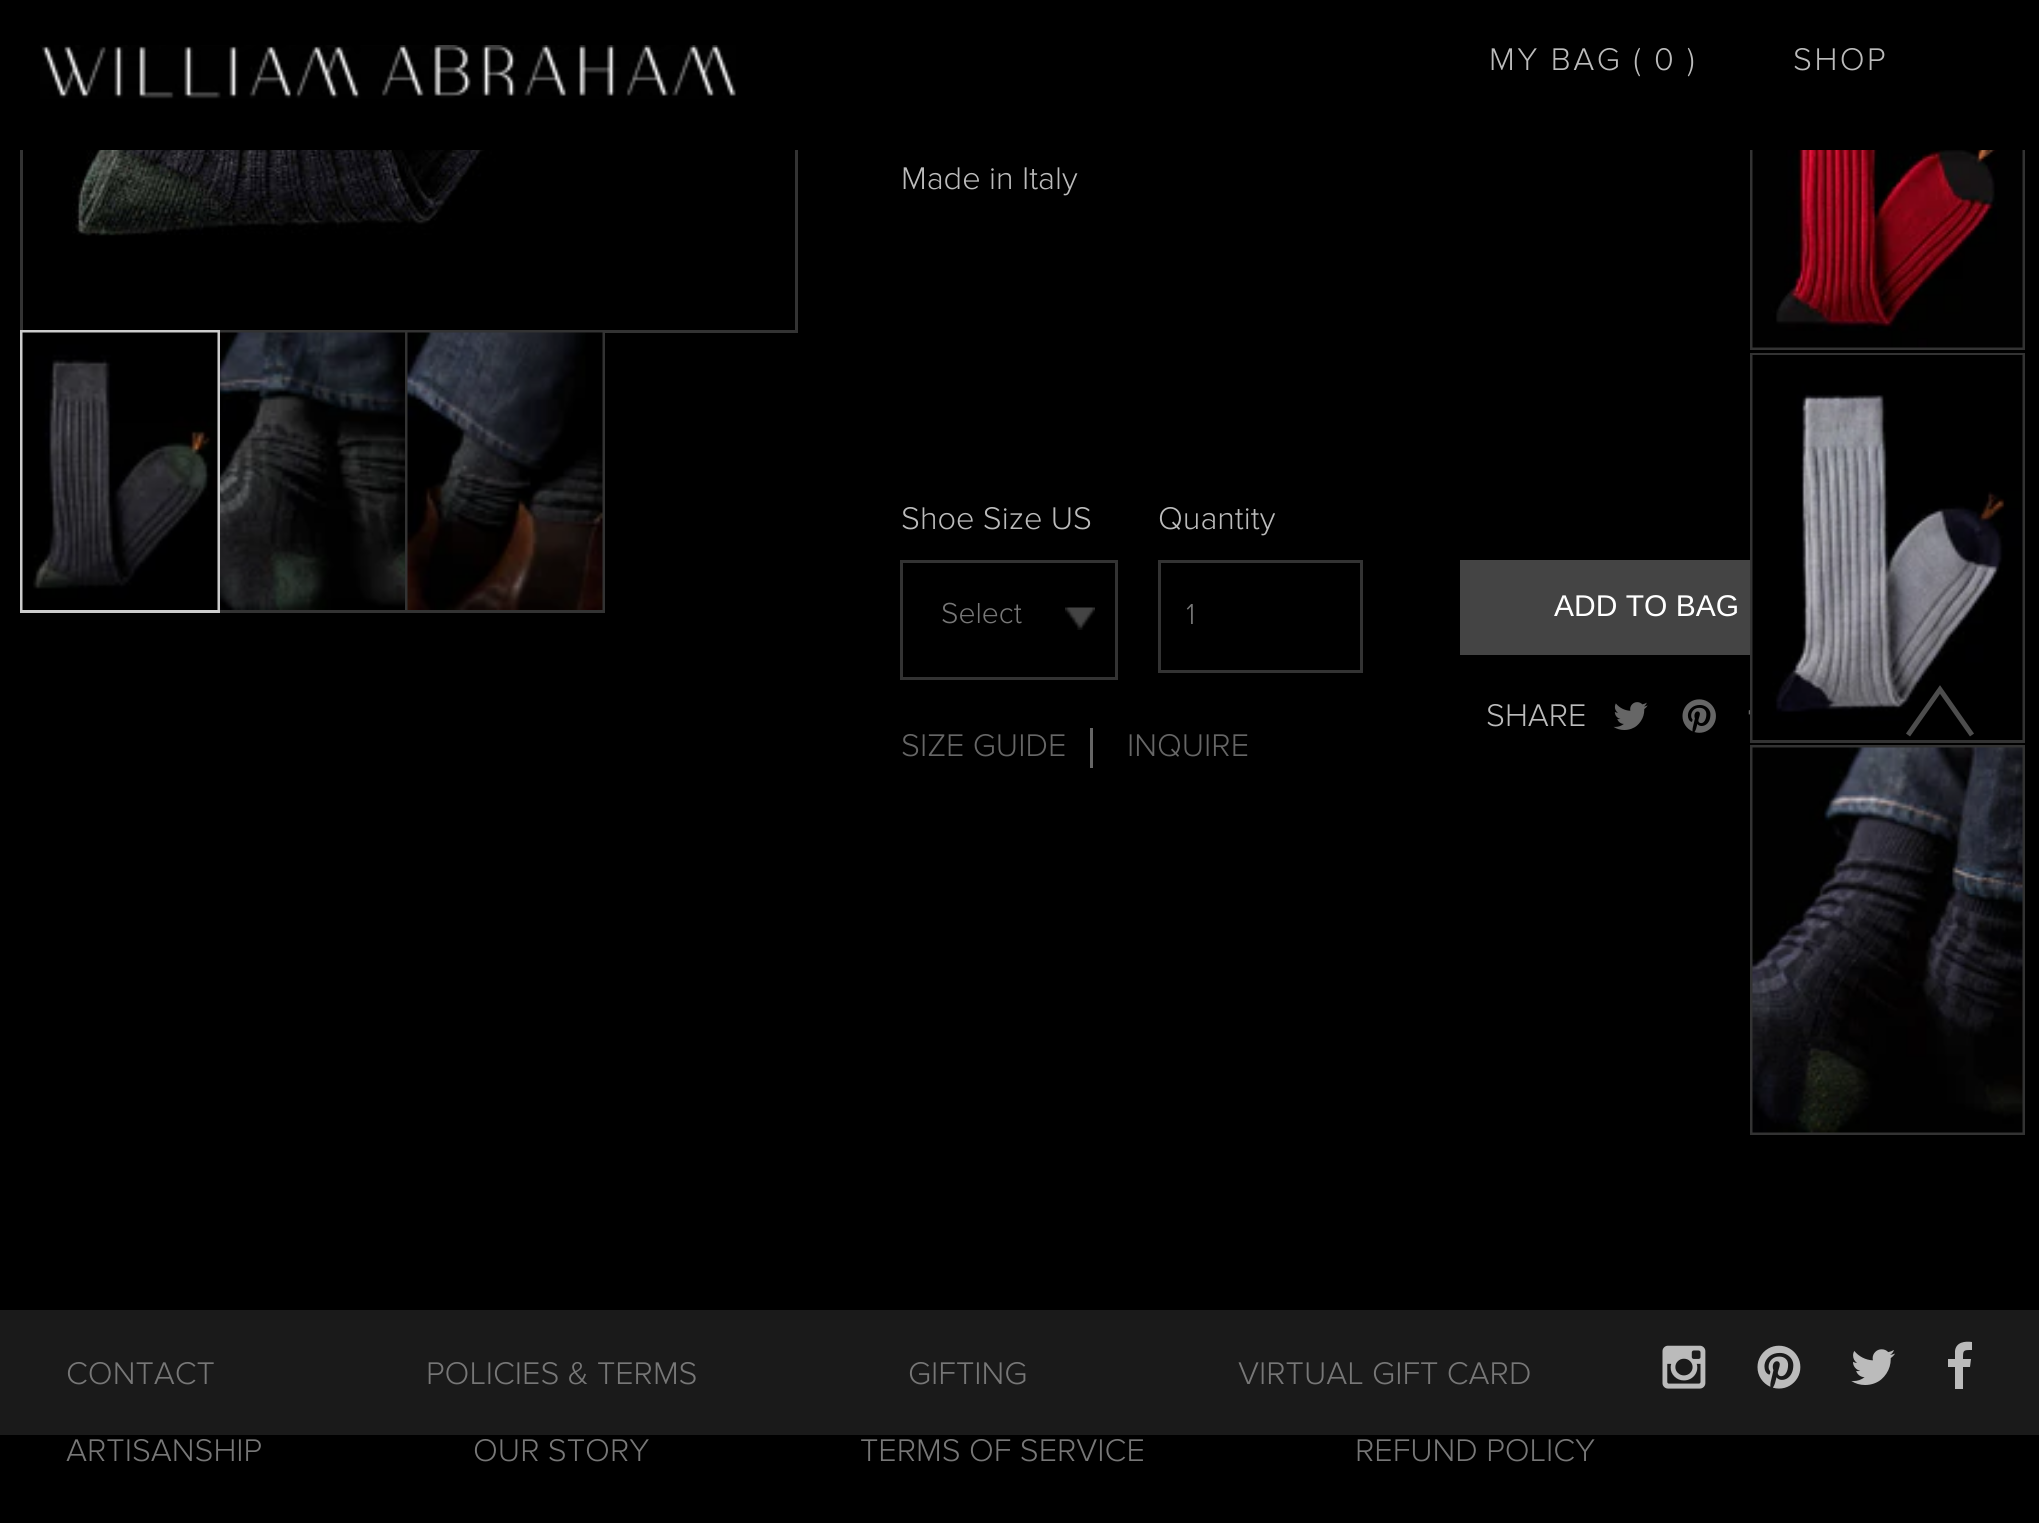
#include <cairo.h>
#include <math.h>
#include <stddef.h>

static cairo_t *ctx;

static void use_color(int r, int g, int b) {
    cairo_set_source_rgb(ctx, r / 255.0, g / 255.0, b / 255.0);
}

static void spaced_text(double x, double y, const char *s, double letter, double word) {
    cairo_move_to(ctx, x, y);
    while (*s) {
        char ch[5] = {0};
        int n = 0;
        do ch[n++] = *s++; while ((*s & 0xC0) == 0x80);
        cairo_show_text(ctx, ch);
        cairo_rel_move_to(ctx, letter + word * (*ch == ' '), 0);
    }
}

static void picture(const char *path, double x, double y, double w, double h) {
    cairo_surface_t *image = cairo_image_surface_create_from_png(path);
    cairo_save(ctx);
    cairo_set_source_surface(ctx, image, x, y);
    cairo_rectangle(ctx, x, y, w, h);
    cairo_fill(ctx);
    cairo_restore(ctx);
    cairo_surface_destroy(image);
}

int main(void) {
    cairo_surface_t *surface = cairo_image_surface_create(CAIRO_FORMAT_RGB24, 2039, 1523);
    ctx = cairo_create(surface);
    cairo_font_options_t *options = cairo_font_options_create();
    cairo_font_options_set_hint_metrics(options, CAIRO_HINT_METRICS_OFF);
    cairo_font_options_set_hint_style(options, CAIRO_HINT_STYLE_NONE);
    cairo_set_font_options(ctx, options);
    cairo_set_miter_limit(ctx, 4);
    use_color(0, 0, 0);
    cairo_paint(ctx);
    cairo_rectangle(ctx, 21.5, -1.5, 775, 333);
    use_color(51, 51, 51);
    cairo_set_line_width(ctx, 3);
    cairo_stroke(ctx);
    cairo_rectangle(ctx, 1751.5, -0.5, 272, 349);
    cairo_stroke(ctx);
    use_color(0, 0, 0);
    cairo_rectangle(ctx, 20, 0, 2005, 150);
    cairo_fill(ctx);
    picture("img1.png", 40, 45, 696, 54);
    cairo_select_font_face(ctx, "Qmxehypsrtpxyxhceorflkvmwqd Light", CAIRO_FONT_SLANT_NORMAL, CAIRO_FONT_WEIGHT_NORMAL);
    cairo_set_font_size(ctx, 32.5);
    use_color(187, 187, 187);
    spaced_text(1489, 70, "MY BAG ( 0 )", 2.5, 0);
    spaced_text(1793, 70, "SHOP", 2.5, 0);
    picture("img2.png", 72, 150, 542, 86);
    cairo_rectangle(ctx, 214.5, 331.5, 197, 280);
    use_color(51, 51, 51);
    cairo_stroke(ctx);
    cairo_rectangle(ctx, 21.5, 331.5, 197, 280);
    use_color(204, 204, 204);
    cairo_stroke(ctx);
    picture("img3.png", 22, 332, 196, 278);
    picture("img4.png", 220, 332, 185, 278);
    cairo_rectangle(ctx, 406.5, 331.5, 197, 280);
    use_color(51, 51, 51);
    cairo_stroke(ctx);
    picture("img5.png", 407, 332, 196, 278);
    use_color(187, 187, 187);
    cairo_move_to(ctx, 901, 189);
    cairo_show_text(ctx, "Made in Italy");
    cairo_move_to(ctx, 901, 529);
    cairo_show_text(ctx, "Shoe Size US");
    picture("img6.png", 1065, 607, 30, 23);
    cairo_rectangle(ctx, 901.5, 561.5, 215, 117);
    use_color(51, 51, 51);
    cairo_stroke(ctx);
    cairo_set_font_size(ctx, 30);
    use_color(119, 119, 119);
    cairo_move_to(ctx, 941, 623);
    cairo_show_text(ctx, "Select");
    cairo_set_font_size(ctx, 32.5);
    use_color(187, 187, 187);
    cairo_move_to(ctx, 1158, 529);
    cairo_show_text(ctx, "Quantity");
    cairo_rectangle(ctx, 1159.5, 561.5, 202, 110);
    use_color(51, 51, 51);
    cairo_stroke(ctx);
    cairo_set_font_size(ctx, 30);
    use_color(119, 119, 119);
    cairo_move_to(ctx, 1186, 624);
    cairo_show_text(ctx, "1");
    use_color(68, 68, 68);
    cairo_rectangle(ctx, 1460, 560, 290, 95);
    cairo_fill(ctx);
    cairo_select_font_face(ctx, "Liberation Sans", CAIRO_FONT_SLANT_NORMAL, CAIRO_FONT_WEIGHT_NORMAL);
    use_color(255, 255, 255);
    cairo_move_to(ctx, 1554, 616);
    cairo_show_text(ctx, "ADD TO BAG");
    cairo_select_font_face(ctx, "Qmxehypsrtpxyxhceorflkvmwqd Light", CAIRO_FONT_SLANT_NORMAL, CAIRO_FONT_WEIGHT_NORMAL);
    cairo_set_font_size(ctx, 32.5);
    use_color(187, 187, 187);
    cairo_move_to(ctx, 1486, 726);
    cairo_show_text(ctx, "SHARE");
    picture("img7.png", 1613, 702, 35, 28);
    picture("img8.png", 1682, 699, 34, 34);
    picture("img9.png", 1748, 710, 2, 5);
    use_color(102, 102, 102);
    cairo_move_to(ctx, 901, 756);
    cairo_show_text(ctx, "SIZE GUIDE");
    cairo_rectangle(ctx, 1090, 728, 3, 40);
    cairo_fill(ctx);
    cairo_move_to(ctx, 1127, 756);
    cairo_show_text(ctx, "INQUIRE");
    picture("img10.png", 1752, 150, 271, 198);
    cairo_rectangle(ctx, 1751.5, 354.5, 272, 387);
    use_color(51, 51, 51);
    cairo_stroke(ctx);
    picture("img11.png", 1752, 355, 271, 385);
    cairo_rectangle(ctx, 1751.5, 746.5, 272, 387);
    cairo_stroke(ctx);
    picture("img12.png", 1752, 747, 271, 386);
    cairo_new_path(ctx);
    cairo_move_to(ctx, 1908, 735);
    cairo_line_to(ctx, 1940, 689.5);
    cairo_line_to(ctx, 1972, 735);
    use_color(77, 77, 77);
    cairo_set_line_width(ctx, 5);
    cairo_stroke(ctx);
    use_color(26, 26, 26);
    cairo_rectangle(ctx, 0, 1310, 2039, 125);
    cairo_fill(ctx);
    use_color(119, 119, 119);
    cairo_move_to(ctx, 66, 1384);
    cairo_show_text(ctx, "CONTACT");
    cairo_move_to(ctx, 426, 1384);
    cairo_show_text(ctx, "POLICIES & TERMS");
    cairo_move_to(ctx, 908, 1384);
    cairo_show_text(ctx, "GIFTING");
    cairo_move_to(ctx, 1238, 1384);
    cairo_show_text(ctx, "VIRTUAL GIFT CARD");
    cairo_move_to(ctx, 66, 1461);
    cairo_show_text(ctx, "ARTISANSHIP");
    cairo_move_to(ctx, 473, 1461);
    cairo_show_text(ctx, "OUR STORY");
    cairo_move_to(ctx, 860, 1461);
    cairo_show_text(ctx, "TERMS OF SERVICE");
    cairo_move_to(ctx, 1355, 1461);
    cairo_show_text(ctx, "REFUND POLICY");
    picture("img13.png", 1662, 1345, 44, 44);
    picture("img14.png", 1757, 1345, 44, 44);
    picture("img15.png", 1851, 1349, 44, 36);
    use_color(187, 187, 187);
    cairo_new_path(ctx);
    cairo_move_to(ctx, 1972, 1342);
    cairo_line_to(ctx, 1972, 1350);
    cairo_curve_to(ctx, 1963, 1350, 1963, 1350, 1963, 1359);
    cairo_line_to(ctx, 1971, 1359);
    cairo_line_to(ctx, 1970, 1367);
    cairo_line_to(ctx, 1963, 1367);
    cairo_line_to(ctx, 1963, 1389);
    cairo_line_to(ctx, 1955, 1389);
    cairo_line_to(ctx, 1955, 1367);
    cairo_line_to(ctx, 1948, 1367);
    cairo_line_to(ctx, 1948, 1359);
    cairo_line_to(ctx, 1955, 1359);
    cairo_line_to(ctx, 1955, 1351);
    cairo_curve_to(ctx, 1956, 1342, 1965, 1341, 1972, 1342);
    cairo_close_path(ctx);
    cairo_fill(ctx);
    cairo_surface_write_to_png(surface, "result.png");
    cairo_font_options_destroy(options);
    cairo_destroy(ctx);
    cairo_surface_destroy(surface);
    return 0;
}
